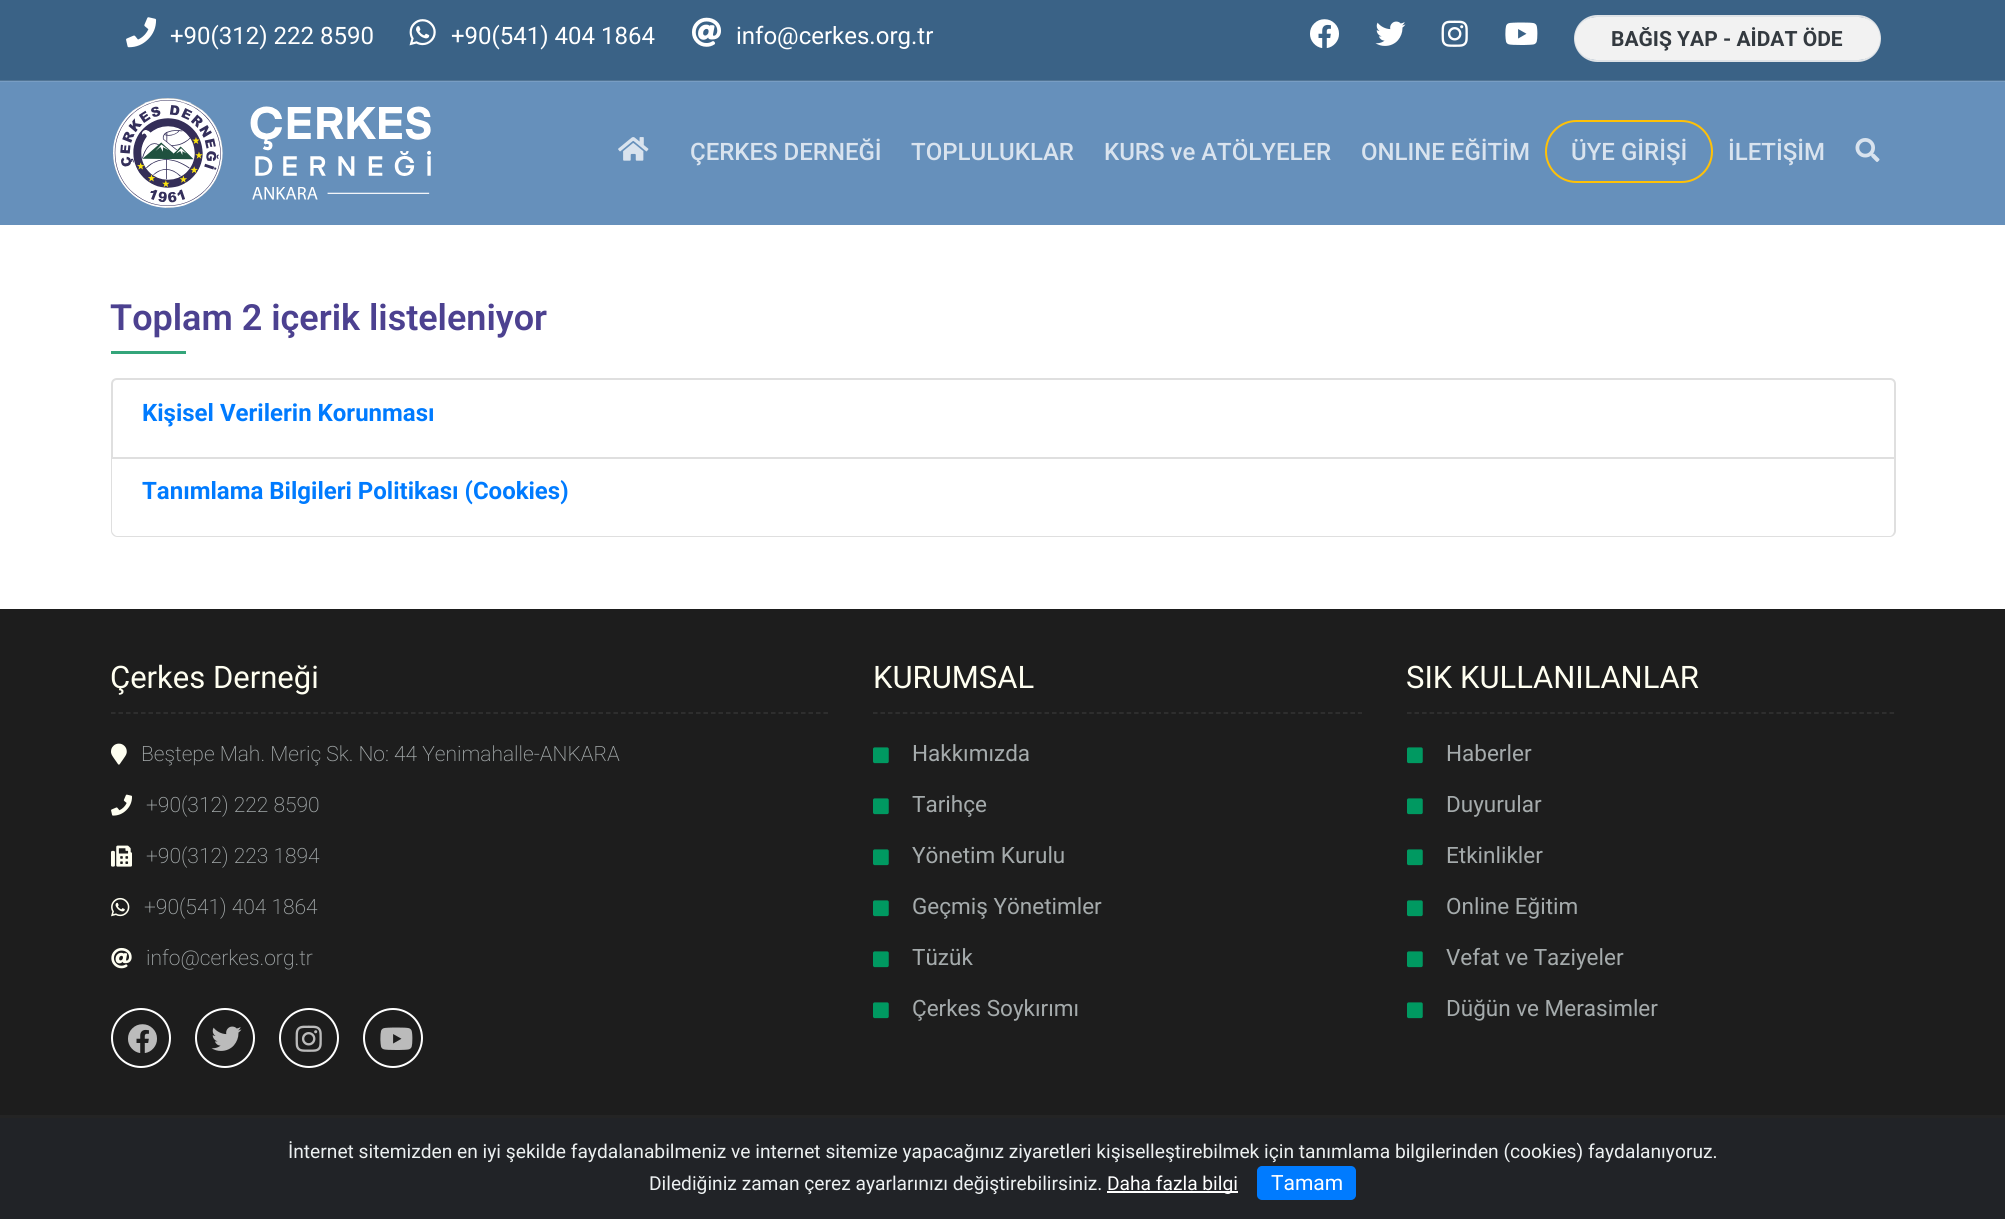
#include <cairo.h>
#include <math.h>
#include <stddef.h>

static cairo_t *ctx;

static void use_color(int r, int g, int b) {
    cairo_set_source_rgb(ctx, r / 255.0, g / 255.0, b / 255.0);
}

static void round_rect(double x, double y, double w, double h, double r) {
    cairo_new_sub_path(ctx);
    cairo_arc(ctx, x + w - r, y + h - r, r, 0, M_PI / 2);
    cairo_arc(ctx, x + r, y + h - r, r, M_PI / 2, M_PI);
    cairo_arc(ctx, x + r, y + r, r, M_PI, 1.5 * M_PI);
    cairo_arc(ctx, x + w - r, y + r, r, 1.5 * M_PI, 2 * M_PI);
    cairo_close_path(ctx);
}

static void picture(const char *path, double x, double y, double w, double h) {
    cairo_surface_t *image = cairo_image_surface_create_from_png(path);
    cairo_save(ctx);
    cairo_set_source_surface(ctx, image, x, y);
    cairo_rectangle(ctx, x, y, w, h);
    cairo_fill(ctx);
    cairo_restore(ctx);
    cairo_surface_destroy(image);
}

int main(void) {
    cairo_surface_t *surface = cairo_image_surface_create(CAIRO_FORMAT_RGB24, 2005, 1219);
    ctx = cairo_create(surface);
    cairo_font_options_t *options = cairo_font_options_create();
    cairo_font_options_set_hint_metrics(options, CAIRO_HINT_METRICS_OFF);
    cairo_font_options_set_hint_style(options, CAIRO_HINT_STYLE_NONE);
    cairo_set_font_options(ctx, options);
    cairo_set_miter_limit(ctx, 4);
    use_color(29, 29, 29);
    cairo_paint(ctx);
    use_color(58, 98, 134);
    cairo_rectangle(ctx, 0, 0, 2005, 80);
    cairo_fill(ctx);
    use_color(82, 117, 149);
    cairo_rectangle(ctx, 0, 80, 2005, 1);
    cairo_fill(ctx);
    picture("img1.png", 126, 17, 31, 31);
    cairo_select_font_face(ctx, "Roboto", CAIRO_FONT_SLANT_NORMAL, CAIRO_FONT_WEIGHT_NORMAL);
    cairo_set_font_size(ctx, 24);
    use_color(255, 255, 255);
    cairo_move_to(ctx, 170, 44);
    cairo_show_text(ctx, "+90(312) 222 8590");
    picture("img2.png", 409, 19, 27, 27);
    cairo_move_to(ctx, 451, 44);
    cairo_show_text(ctx, "+90(541) 404 1864");
    picture("img3.png", 692, 17, 29, 30);
    cairo_move_to(ctx, 736, 44);
    cairo_show_text(ctx, "info@cerkes.org.tr");
    picture("img4.png", 1310, 19, 29, 29);
    picture("img5.png", 1375, 21, 31, 25);
    picture("img6.png", 1441, 20, 27, 27);
    picture("img7.png", 1505, 22, 33, 23);
    round_rect(1575, 16, 305, 45, 22.5);
    use_color(222, 226, 230);
    cairo_stroke(ctx);
    use_color(242, 242, 242);
    round_rect(1575, 17, 305, 43, 21.5);
    cairo_fill(ctx);
    cairo_select_font_face(ctx, "Roboto", CAIRO_FONT_SLANT_NORMAL, CAIRO_FONT_WEIGHT_BOLD);
    cairo_set_font_size(ctx, 21);
    use_color(52, 58, 64);
    cairo_move_to(ctx, 1611, 46);
    cairo_show_text(ctx, "BAĞIŞ YAP - AİDAT ÖDE");
    use_color(102, 144, 187);
    cairo_rectangle(ctx, 0, 82, 2005, 143);
    cairo_fill(ctx);
    picture("img8.png", 113, 98, 318, 110);
    picture("img9.png", 618, 137, 31, 24);
    cairo_select_font_face(ctx, "Roboto Medium", CAIRO_FONT_SLANT_NORMAL, CAIRO_FONT_WEIGHT_NORMAL);
    cairo_set_font_size(ctx, 24);
    use_color(217, 227, 238);
    cairo_move_to(ctx, 690, 160);
    cairo_show_text(ctx, "ÇERKES DERNEĞİ");
    cairo_move_to(ctx, 911, 160);
    cairo_show_text(ctx, "TOPLULUKLAR");
    cairo_move_to(ctx, 1104, 160);
    cairo_show_text(ctx, "KURS ve ATÖLYELER");
    cairo_move_to(ctx, 1361, 160);
    cairo_show_text(ctx, "ONLINE EĞİTİM");
    round_rect(1546, 121, 166, 61, 30.5);
    use_color(255, 193, 7);
    cairo_stroke(ctx);
    use_color(217, 227, 238);
    cairo_move_to(ctx, 1571, 160);
    cairo_show_text(ctx, "ÜYE GİRİŞİ");
    cairo_move_to(ctx, 1728, 160);
    cairo_show_text(ctx, "İLETİŞİM");
    picture("img10.png", 1855, 138, 25, 24);
    use_color(255, 255, 255);
    cairo_rectangle(ctx, 0, 225, 2005, 384);
    cairo_fill(ctx);
    use_color(120, 157, 195);
    cairo_rectangle(ctx, 0, 81, 2005, 1);
    cairo_fill(ctx);
    cairo_select_font_face(ctx, "Roboto SemiBold", CAIRO_FONT_SLANT_NORMAL, CAIRO_FONT_WEIGHT_NORMAL);
    cairo_set_font_size(ctx, 36);
    use_color(76, 65, 144);
    cairo_move_to(ctx, 110, 330);
    cairo_show_text(ctx, "Toplam 2 içerik listeleniyor");
    use_color(52, 165, 122);
    cairo_rectangle(ctx, 111, 351, 75, 3);
    cairo_fill(ctx);
    cairo_new_path(ctx);
    cairo_move_to(ctx, 117, 379);
    cairo_line_to(ctx, 1890, 379);
    cairo_curve_to(ctx, 1893, 379, 1895, 381, 1895, 384);
    cairo_line_to(ctx, 1895, 458);
    cairo_line_to(ctx, 112, 458);
    cairo_line_to(ctx, 112, 384);
    cairo_curve_to(ctx, 112, 381, 114, 379, 117, 379);
    cairo_close_path(ctx);
    use_color(223, 223, 223);
    cairo_stroke(ctx);
    cairo_select_font_face(ctx, "Roboto", CAIRO_FONT_SLANT_NORMAL, CAIRO_FONT_WEIGHT_BOLD);
    cairo_set_font_size(ctx, 24);
    use_color(0, 123, 255);
    cairo_move_to(ctx, 142, 421);
    cairo_show_text(ctx, "Kişisel Verilerin Korunması");
    use_color(223, 223, 223);
    cairo_set_fill_rule(ctx, CAIRO_FILL_RULE_EVEN_ODD);
    cairo_new_path(ctx);
    cairo_move_to(ctx, 111, 459);
    cairo_line_to(ctx, 1896, 459);
    cairo_line_to(ctx, 1896, 531);
    cairo_curve_to(ctx, 1896, 534, 1893, 537, 1890, 537);
    cairo_line_to(ctx, 117, 537);
    cairo_curve_to(ctx, 114, 537, 111, 534, 111, 531);
    cairo_close_path(ctx);
    cairo_move_to(ctx, 112, 459);
    cairo_line_to(ctx, 1894, 459);
    cairo_line_to(ctx, 1894, 531);
    cairo_curve_to(ctx, 1894, 533, 1892, 536, 1890, 536);
    cairo_line_to(ctx, 117, 536);
    cairo_curve_to(ctx, 115, 536, 112, 533, 112, 531);
    cairo_close_path(ctx);
    cairo_fill(ctx);
    use_color(0, 123, 255);
    cairo_move_to(ctx, 142, 499);
    cairo_show_text(ctx, "Tanımlama Bilgileri Politikası (Cookies)");
    cairo_new_path(ctx);
    cairo_move_to(ctx, 111, 713);
    cairo_line_to(ctx, 828, 713);
    use_color(52, 52, 52);
    cairo_set_line_width(ctx, 1.5);
    cairo_set_dash(ctx, (double[]){4.5, 3}, 2, 0);
    cairo_stroke(ctx);
    cairo_select_font_face(ctx, "Roboto", CAIRO_FONT_SLANT_NORMAL, CAIRO_FONT_WEIGHT_NORMAL);
    cairo_set_font_size(ctx, 31);
    use_color(255, 255, 241);
    cairo_move_to(ctx, 110, 688);
    cairo_show_text(ctx, "Çerkes Derneği");
    picture("img11.png", 111, 743, 16, 22);
    cairo_select_font_face(ctx, "Roboto ExtraLight", CAIRO_FONT_SLANT_NORMAL, CAIRO_FONT_WEIGHT_NORMAL);
    cairo_set_font_size(ctx, 21);
    use_color(165, 171, 172);
    cairo_move_to(ctx, 141, 761);
    cairo_show_text(ctx, "Beştepe Mah. Meriç Sk. No: 44 Yenimahalle-ANKARA");
    picture("img12.png", 111, 794, 21, 22);
    cairo_move_to(ctx, 146, 812);
    cairo_show_text(ctx, "+90(312) 222 8590");
    picture("img13.png", 111, 845, 21, 22);
    cairo_move_to(ctx, 146, 863);
    cairo_show_text(ctx, "+90(312) 223 1894");
    picture("img14.png", 111, 897, 19, 20);
    cairo_move_to(ctx, 144, 914);
    cairo_show_text(ctx, "+90(541) 404 1864");
    picture("img15.png", 111, 947, 21, 22);
    cairo_move_to(ctx, 146, 965);
    cairo_show_text(ctx, "info@cerkes.org.tr");
    cairo_new_path(ctx);
    cairo_arc(ctx, 141, 1038, 29, 0, 2 * M_PI);
    use_color(255, 255, 255);
    cairo_set_line_width(ctx, 2);
    cairo_set_dash(ctx, NULL, 0, 0);
    cairo_stroke(ctx);
    picture("img16.png", 128, 1024, 29, 29);
    cairo_arc(ctx, 225, 1038, 29, 0, 2 * M_PI);
    cairo_stroke(ctx);
    picture("img17.png", 211, 1026, 31, 25);
    cairo_arc(ctx, 309, 1038, 29, 0, 2 * M_PI);
    cairo_stroke(ctx);
    picture("img18.png", 295, 1025, 27, 27);
    cairo_arc(ctx, 393, 1038, 29, 0, 2 * M_PI);
    cairo_stroke(ctx);
    picture("img19.png", 380, 1027, 33, 23);
    cairo_new_path(ctx);
    cairo_move_to(ctx, 873, 713);
    cairo_line_to(ctx, 1362, 713);
    use_color(52, 52, 52);
    cairo_set_line_width(ctx, 1.5);
    cairo_set_dash(ctx, (double[]){4.5, 2.96}, 2, 0);
    cairo_stroke(ctx);
    cairo_select_font_face(ctx, "Roboto", CAIRO_FONT_SLANT_NORMAL, CAIRO_FONT_WEIGHT_NORMAL);
    cairo_set_font_size(ctx, 31);
    use_color(255, 255, 241);
    cairo_move_to(ctx, 873, 688);
    cairo_show_text(ctx, "KURUMSAL");
    picture("img20.png", 873, 747, 16, 17);
    cairo_set_font_size(ctx, 22.5);
    use_color(165, 171, 172);
    cairo_move_to(ctx, 912, 761);
    cairo_show_text(ctx, "Hakkımızda");
    picture("img20.png", 873, 798, 16, 17);
    cairo_move_to(ctx, 912, 812);
    cairo_show_text(ctx, "Tarihçe");
    picture("img20.png", 873, 849, 16, 17);
    cairo_move_to(ctx, 912, 863);
    cairo_show_text(ctx, "Yönetim Kurulu");
    picture("img20.png", 873, 900, 16, 17);
    cairo_move_to(ctx, 912, 914);
    cairo_show_text(ctx, "Geçmiş Yönetimler");
    picture("img20.png", 873, 951, 16, 17);
    cairo_move_to(ctx, 912, 965);
    cairo_show_text(ctx, "Tüzük");
    picture("img20.png", 873, 1002, 16, 17);
    cairo_move_to(ctx, 912, 1016);
    cairo_show_text(ctx, "Çerkes Soykırımı");
    cairo_new_path(ctx);
    cairo_move_to(ctx, 1407, 713);
    cairo_line_to(ctx, 1894.5, 713);
    use_color(52, 52, 52);
    cairo_set_dash(ctx, (double[]){4.5, 3.04}, 2, 0);
    cairo_stroke(ctx);
    cairo_set_font_size(ctx, 31);
    use_color(255, 255, 241);
    cairo_move_to(ctx, 1406, 688);
    cairo_show_text(ctx, "SIK KULLANILANLAR");
    picture("img20.png", 1407, 747, 16, 17);
    cairo_set_font_size(ctx, 22.5);
    use_color(165, 171, 172);
    cairo_move_to(ctx, 1446, 761);
    cairo_show_text(ctx, "Haberler");
    picture("img20.png", 1407, 798, 16, 17);
    cairo_move_to(ctx, 1446, 812);
    cairo_show_text(ctx, "Duyurular");
    picture("img20.png", 1407, 849, 16, 17);
    cairo_move_to(ctx, 1446, 863);
    cairo_show_text(ctx, "Etkinlikler");
    picture("img20.png", 1407, 900, 16, 17);
    cairo_move_to(ctx, 1446, 914);
    cairo_show_text(ctx, "Online Eğitim");
    picture("img20.png", 1407, 951, 16, 17);
    cairo_move_to(ctx, 1446, 965);
    cairo_show_text(ctx, "Vefat ve Taziyeler");
    picture("img20.png", 1407, 1002, 16, 17);
    cairo_move_to(ctx, 1446, 1016);
    cairo_show_text(ctx, "Düğün ve Merasimler");
    use_color(36, 36, 36);
    cairo_rectangle(ctx, 0, 1115, 2005, 3);
    cairo_fill(ctx);
    use_color(33, 35, 39);
    cairo_rectangle(ctx, 0, 1118, 2005, 101);
    cairo_fill(ctx);
    cairo_set_font_size(ctx, 19.2);
    use_color(236, 240, 241);
    cairo_move_to(ctx, 288, 1158);
    cairo_show_text(ctx, "İnternet sitemizden en iyi şekilde faydalanabilmeniz ve internet sitemize yapacağınız ziyaretleri kişiselleştirebilmek için tanımlama bilgilerinden (cookies) faydalanıyoruz.");
    cairo_move_to(ctx, 649, 1190);
    cairo_show_text(ctx, "Dilediğiniz zaman çerez ayarlarınızı değiştirebilirsiniz.");
    use_color(255, 255, 255);
    cairo_rectangle(ctx, 1107, 1191, 131, 2);
    cairo_fill(ctx);
    cairo_move_to(ctx, 1107, 1190);
    cairo_show_text(ctx, "Daha fazla bilgi");
    use_color(0, 123, 255);
    round_rect(1258, 1167, 97, 32, 4);
    cairo_fill_preserve(ctx);
    cairo_set_line_width(ctx, 2);
    cairo_set_dash(ctx, NULL, 0, 0);
    cairo_stroke(ctx);
    cairo_set_font_size(ctx, 21);
    use_color(255, 255, 255);
    cairo_move_to(ctx, 1271, 1190);
    cairo_show_text(ctx, "Tamam");
    cairo_surface_write_to_png(surface, "result.png");
    cairo_font_options_destroy(options);
    cairo_destroy(ctx);
    cairo_surface_destroy(surface);
    return 0;
}
